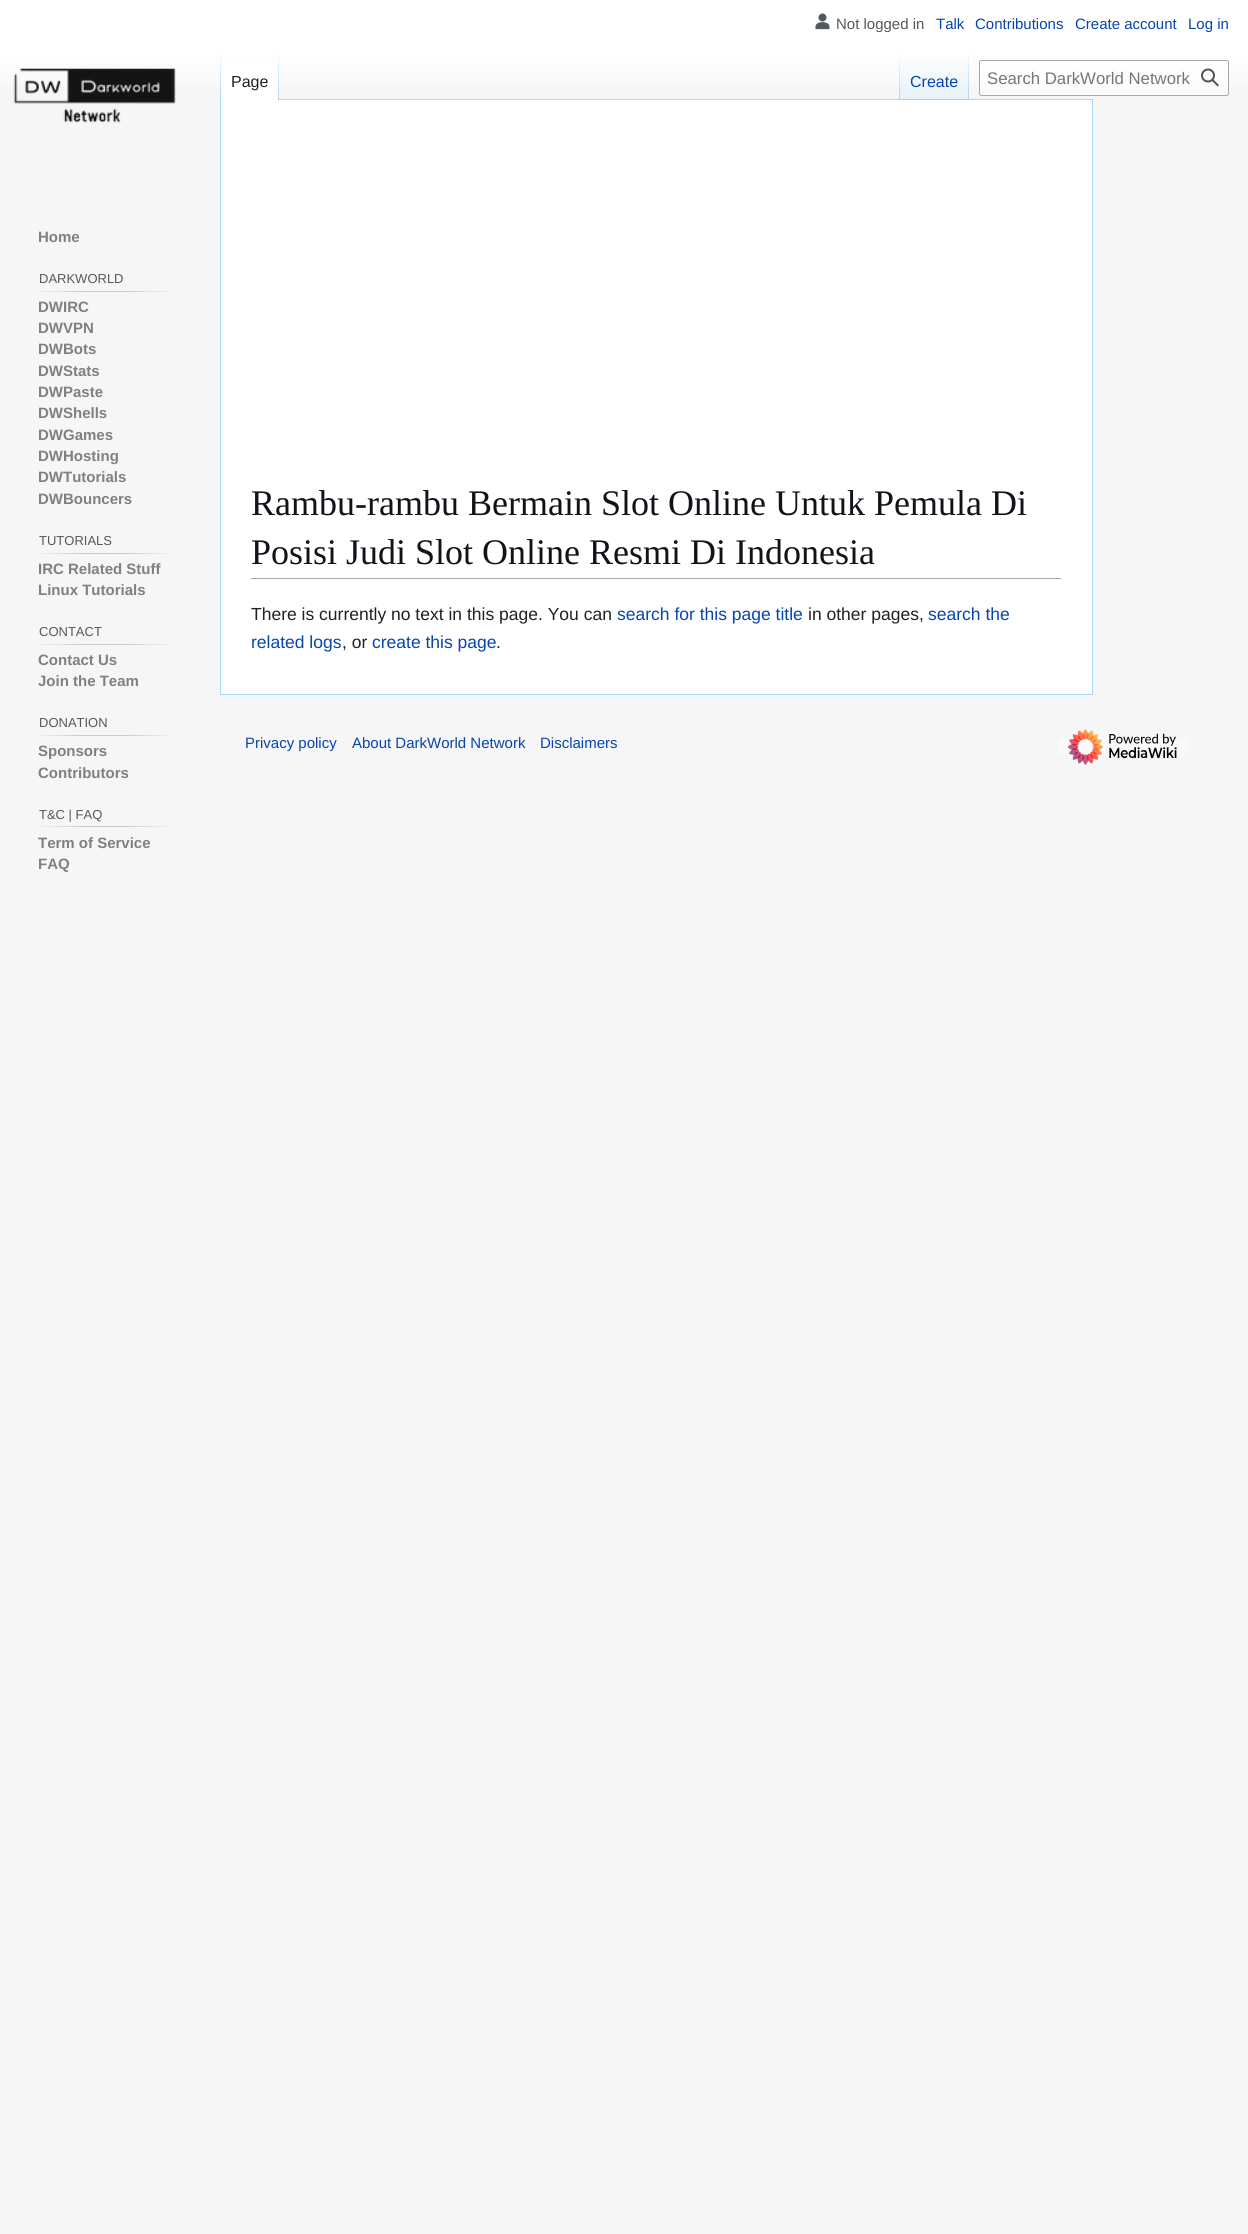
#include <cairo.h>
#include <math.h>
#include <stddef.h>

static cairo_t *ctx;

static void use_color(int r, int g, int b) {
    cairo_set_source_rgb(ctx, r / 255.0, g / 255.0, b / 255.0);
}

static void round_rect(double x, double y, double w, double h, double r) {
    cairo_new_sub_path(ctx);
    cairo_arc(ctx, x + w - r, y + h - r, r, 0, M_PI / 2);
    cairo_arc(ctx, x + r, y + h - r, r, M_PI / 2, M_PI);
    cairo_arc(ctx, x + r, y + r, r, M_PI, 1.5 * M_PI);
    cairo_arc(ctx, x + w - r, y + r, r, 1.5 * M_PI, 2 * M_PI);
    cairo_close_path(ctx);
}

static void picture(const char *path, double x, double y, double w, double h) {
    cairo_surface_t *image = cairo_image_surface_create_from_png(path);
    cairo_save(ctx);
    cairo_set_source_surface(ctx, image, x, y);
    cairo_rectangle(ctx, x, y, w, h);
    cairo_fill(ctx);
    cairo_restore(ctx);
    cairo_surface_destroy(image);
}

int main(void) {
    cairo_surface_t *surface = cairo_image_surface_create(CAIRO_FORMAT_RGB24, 1248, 2234);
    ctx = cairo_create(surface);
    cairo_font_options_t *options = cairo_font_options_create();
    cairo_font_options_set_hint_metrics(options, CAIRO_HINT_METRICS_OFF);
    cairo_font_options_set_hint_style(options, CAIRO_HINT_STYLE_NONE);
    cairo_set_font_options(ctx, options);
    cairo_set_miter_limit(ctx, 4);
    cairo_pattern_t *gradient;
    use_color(246, 246, 246);
    cairo_paint(ctx);
    gradient = cairo_pattern_create_linear(624, 0, 624, 100);
    cairo_pattern_add_color_stop_rgba(gradient, 0.5, 1, 1, 1, 1);
    cairo_pattern_add_color_stop_rgba(gradient, 1, 0.965, 0.965, 0.965, 1);
    cairo_set_source(ctx, gradient);
    cairo_pattern_destroy(gradient);
    cairo_rectangle(ctx, 0, 0, 1248, 86);
    cairo_fill(ctx);
    picture("img1.png", 815, 13, 15, 17);
    cairo_select_font_face(ctx, "Liberation Sans", CAIRO_FONT_SLANT_NORMAL, CAIRO_FONT_WEIGHT_NORMAL);
    cairo_set_font_size(ctx, 15);
    use_color(84, 89, 93);
    cairo_move_to(ctx, 836, 29);
    cairo_show_text(ctx, "Not logged in");
    use_color(6, 69, 173);
    cairo_move_to(ctx, 936, 29);
    cairo_show_text(ctx, "Talk");
    cairo_move_to(ctx, 975, 29);
    cairo_show_text(ctx, "Contributions");
    cairo_move_to(ctx, 1075, 29);
    cairo_show_text(ctx, "Create account");
    cairo_move_to(ctx, 1188, 29);
    cairo_show_text(ctx, "Log in");
    use_color(255, 255, 255);
    cairo_rectangle(ctx, 220.5, 99.5, 872, 595);
    cairo_fill_preserve(ctx);
    use_color(167, 215, 249);
    cairo_set_line_width(ctx, 1);
    cairo_stroke(ctx);
    gradient = cairo_pattern_create_linear(221, 50, 221, 100);
    cairo_pattern_add_color_stop_rgba(gradient, 0, 0.655, 0.843, 0.976, 0);
    cairo_pattern_add_color_stop_rgba(gradient, 1, 0.655, 0.843, 0.976, 1);
    cairo_set_source(ctx, gradient);
    cairo_pattern_destroy(gradient);
    cairo_rectangle(ctx, 220, 50, 1, 50);
    cairo_fill(ctx);
    use_color(255, 255, 255);
    cairo_rectangle(ctx, 221, 64, 57, 36);
    cairo_fill(ctx);
    gradient = cairo_pattern_create_linear(278, 50, 278, 100);
    cairo_pattern_add_color_stop_rgba(gradient, 0, 1, 1, 1, 1);
    cairo_pattern_add_color_stop_rgba(gradient, 1, 0.655, 0.843, 0.976, 1);
    cairo_set_source(ctx, gradient);
    cairo_pattern_destroy(gradient);
    cairo_rectangle(ctx, 278, 50, 1, 50);
    cairo_fill(ctx);
    cairo_set_font_size(ctx, 16);
    use_color(32, 33, 34);
    cairo_move_to(ctx, 231, 87);
    cairo_show_text(ctx, "Page");
    gradient = cairo_pattern_create_linear(899, 50, 899, 100);
    cairo_pattern_add_color_stop_rgba(gradient, 0, 0.655, 0.843, 0.976, 0);
    cairo_pattern_add_color_stop_rgba(gradient, 1, 0.655, 0.843, 0.976, 1);
    cairo_set_source(ctx, gradient);
    cairo_pattern_destroy(gradient);
    cairo_rectangle(ctx, 899, 50, 1, 50);
    cairo_fill(ctx);
    gradient = cairo_pattern_create_linear(934, 100, 934, 50);
    cairo_pattern_add_color_stop_rgba(gradient, 0, 0.467, 0.757, 0.965, 1);
    cairo_pattern_add_color_stop_rgba(gradient, 0.03, 0.91, 0.949, 0.973, 1);
    cairo_pattern_add_color_stop_rgba(gradient, 1, 1, 1, 1, 1);
    cairo_set_source(ctx, gradient);
    cairo_pattern_destroy(gradient);
    cairo_rectangle(ctx, 900, 57, 69, 43);
    cairo_fill(ctx);
    gradient = cairo_pattern_create_linear(968, 50, 968, 100);
    cairo_pattern_add_color_stop_rgba(gradient, 0, 0.655, 0.843, 0.976, 0);
    cairo_pattern_add_color_stop_rgba(gradient, 1, 0.655, 0.843, 0.976, 1);
    cairo_set_source(ctx, gradient);
    cairo_pattern_destroy(gradient);
    cairo_rectangle(ctx, 968, 50, 1, 50);
    cairo_fill(ctx);
    use_color(6, 69, 173);
    cairo_move_to(ctx, 910, 87);
    cairo_show_text(ctx, "Create");
    cairo_set_source_rgba(ctx, 1, 1, 1, 0.5);
    round_rect(979.5, 60.5, 249, 35, 2);
    cairo_fill_preserve(ctx);
    use_color(162, 169, 177);
    cairo_stroke(ctx);
    cairo_set_font_size(ctx, 16.75);
    use_color(114, 119, 125);
    cairo_move_to(ctx, 987, 84);
    cairo_show_text(ctx, "Search DarkWorld Network");
    picture("img2.png", 1201, 68, 18, 19);
    picture("img3.png", 13, 68, 163, 55);
    cairo_select_font_face(ctx, "Liberation Sans", CAIRO_FONT_SLANT_NORMAL, CAIRO_FONT_WEIGHT_BOLD);
    cairo_set_font_size(ctx, 15);
    use_color(128, 128, 128);
    cairo_move_to(ctx, 38, 242);
    cairo_show_text(ctx, "Home");
    gradient = cairo_pattern_create_linear(33, 292, 176, 292);
    cairo_pattern_add_color_stop_rgba(gradient, 0, 0.965, 0.965, 0.965, 1);
    cairo_pattern_add_color_stop_rgba(gradient, 0.33, 0.784, 0.8, 0.82, 1);
    cairo_pattern_add_color_stop_rgba(gradient, 0.66, 0.784, 0.8, 0.82, 1);
    cairo_pattern_add_color_stop_rgba(gradient, 1, 0.965, 0.965, 0.965, 1);
    cairo_set_source(ctx, gradient);
    cairo_pattern_destroy(gradient);
    cairo_rectangle(ctx, 33, 291, 143, 1);
    cairo_fill(ctx);
    cairo_select_font_face(ctx, "Liberation Sans", CAIRO_FONT_SLANT_NORMAL, CAIRO_FONT_WEIGHT_NORMAL);
    cairo_set_font_size(ctx, 13);
    use_color(84, 89, 93);
    cairo_move_to(ctx, 39, 283);
    cairo_show_text(ctx, "DARKWORLD");
    cairo_select_font_face(ctx, "Liberation Sans", CAIRO_FONT_SLANT_NORMAL, CAIRO_FONT_WEIGHT_BOLD);
    cairo_set_font_size(ctx, 15);
    use_color(128, 128, 128);
    cairo_move_to(ctx, 38, 312);
    cairo_show_text(ctx, "DWIRC");
    cairo_move_to(ctx, 38, 333);
    cairo_show_text(ctx, "DWVPN");
    cairo_move_to(ctx, 38, 354);
    cairo_show_text(ctx, "DWBots");
    cairo_move_to(ctx, 38, 376);
    cairo_show_text(ctx, "DWStats");
    cairo_move_to(ctx, 38, 397);
    cairo_show_text(ctx, "DWPaste");
    cairo_move_to(ctx, 38, 418);
    cairo_show_text(ctx, "DWShells");
    cairo_move_to(ctx, 38, 440);
    cairo_show_text(ctx, "DWGames");
    cairo_move_to(ctx, 38, 461);
    cairo_show_text(ctx, "DWHosting");
    cairo_move_to(ctx, 38, 482);
    cairo_show_text(ctx, "DWTutorials");
    cairo_move_to(ctx, 38, 504);
    cairo_show_text(ctx, "DWBouncers");
    cairo_save(ctx);
    round_rect(33, 526, 143, 28, 2.5);
    cairo_clip(ctx);
    gradient = cairo_pattern_create_linear(33, 553, 176, 553);
    cairo_pattern_add_color_stop_rgba(gradient, 0, 0.965, 0.965, 0.965, 1);
    cairo_pattern_add_color_stop_rgba(gradient, 0.33, 0.784, 0.8, 0.82, 1);
    cairo_pattern_add_color_stop_rgba(gradient, 0.66, 0.784, 0.8, 0.82, 1);
    cairo_pattern_add_color_stop_rgba(gradient, 1, 0.965, 0.965, 0.965, 1);
    cairo_set_source(ctx, gradient);
    cairo_pattern_destroy(gradient);
    cairo_rectangle(ctx, 33, 553, 143, 1);
    cairo_fill(ctx);
    cairo_restore(ctx);
    cairo_select_font_face(ctx, "Liberation Sans", CAIRO_FONT_SLANT_NORMAL, CAIRO_FONT_WEIGHT_NORMAL);
    cairo_set_font_size(ctx, 13);
    use_color(84, 89, 93);
    cairo_move_to(ctx, 39, 545);
    cairo_show_text(ctx, "TUTORIALS");
    cairo_select_font_face(ctx, "Liberation Sans", CAIRO_FONT_SLANT_NORMAL, CAIRO_FONT_WEIGHT_BOLD);
    cairo_set_font_size(ctx, 15);
    use_color(128, 128, 128);
    cairo_move_to(ctx, 38, 574);
    cairo_show_text(ctx, "IRC Related Stuff");
    cairo_move_to(ctx, 38, 595);
    cairo_show_text(ctx, "Linux Tutorials");
    cairo_save(ctx);
    round_rect(33, 618, 143, 27, 2.5);
    cairo_clip(ctx);
    gradient = cairo_pattern_create_linear(33, 644, 176, 644);
    cairo_pattern_add_color_stop_rgba(gradient, 0, 0.965, 0.965, 0.965, 1);
    cairo_pattern_add_color_stop_rgba(gradient, 0.33, 0.784, 0.8, 0.82, 1);
    cairo_pattern_add_color_stop_rgba(gradient, 0.66, 0.784, 0.8, 0.82, 1);
    cairo_pattern_add_color_stop_rgba(gradient, 1, 0.965, 0.965, 0.965, 1);
    cairo_set_source(ctx, gradient);
    cairo_pattern_destroy(gradient);
    cairo_rectangle(ctx, 33, 644, 143, 1);
    cairo_fill(ctx);
    cairo_restore(ctx);
    cairo_select_font_face(ctx, "Liberation Sans", CAIRO_FONT_SLANT_NORMAL, CAIRO_FONT_WEIGHT_NORMAL);
    cairo_set_font_size(ctx, 13);
    use_color(84, 89, 93);
    cairo_move_to(ctx, 39, 636);
    cairo_show_text(ctx, "CONTACT");
    cairo_select_font_face(ctx, "Liberation Sans", CAIRO_FONT_SLANT_NORMAL, CAIRO_FONT_WEIGHT_BOLD);
    cairo_set_font_size(ctx, 15);
    use_color(128, 128, 128);
    cairo_move_to(ctx, 38, 665);
    cairo_show_text(ctx, "Contact Us");
    cairo_move_to(ctx, 38, 686);
    cairo_show_text(ctx, "Join the Team");
    cairo_save(ctx);
    round_rect(33, 709, 143, 27, 2.5);
    cairo_clip(ctx);
    gradient = cairo_pattern_create_linear(33, 736, 176, 736);
    cairo_pattern_add_color_stop_rgba(gradient, 0, 0.965, 0.965, 0.965, 1);
    cairo_pattern_add_color_stop_rgba(gradient, 0.33, 0.784, 0.8, 0.82, 1);
    cairo_pattern_add_color_stop_rgba(gradient, 0.66, 0.784, 0.8, 0.82, 1);
    cairo_pattern_add_color_stop_rgba(gradient, 1, 0.965, 0.965, 0.965, 1);
    cairo_set_source(ctx, gradient);
    cairo_pattern_destroy(gradient);
    cairo_rectangle(ctx, 33, 735, 143, 1);
    cairo_fill(ctx);
    cairo_restore(ctx);
    cairo_select_font_face(ctx, "Liberation Sans", CAIRO_FONT_SLANT_NORMAL, CAIRO_FONT_WEIGHT_NORMAL);
    cairo_set_font_size(ctx, 13);
    use_color(84, 89, 93);
    cairo_move_to(ctx, 39, 727);
    cairo_show_text(ctx, "DONATION");
    cairo_select_font_face(ctx, "Liberation Sans", CAIRO_FONT_SLANT_NORMAL, CAIRO_FONT_WEIGHT_BOLD);
    cairo_set_font_size(ctx, 15);
    use_color(128, 128, 128);
    cairo_move_to(ctx, 38, 756);
    cairo_show_text(ctx, "Sponsors");
    cairo_move_to(ctx, 38, 778);
    cairo_show_text(ctx, "Contributors");
    gradient = cairo_pattern_create_linear(33, 827, 176, 827);
    cairo_pattern_add_color_stop_rgba(gradient, 0, 0.965, 0.965, 0.965, 1);
    cairo_pattern_add_color_stop_rgba(gradient, 0.33, 0.784, 0.8, 0.82, 1);
    cairo_pattern_add_color_stop_rgba(gradient, 0.66, 0.784, 0.8, 0.82, 1);
    cairo_pattern_add_color_stop_rgba(gradient, 1, 0.965, 0.965, 0.965, 1);
    cairo_set_source(ctx, gradient);
    cairo_pattern_destroy(gradient);
    cairo_rectangle(ctx, 33, 826, 143, 1);
    cairo_fill(ctx);
    cairo_select_font_face(ctx, "Liberation Sans", CAIRO_FONT_SLANT_NORMAL, CAIRO_FONT_WEIGHT_NORMAL);
    cairo_set_font_size(ctx, 13);
    use_color(84, 89, 93);
    cairo_move_to(ctx, 39, 819);
    cairo_show_text(ctx, "T&C | FAQ");
    cairo_select_font_face(ctx, "Liberation Sans", CAIRO_FONT_SLANT_NORMAL, CAIRO_FONT_WEIGHT_BOLD);
    cairo_set_font_size(ctx, 15);
    use_color(128, 128, 128);
    cairo_move_to(ctx, 38, 848);
    cairo_show_text(ctx, "Term of Service");
    cairo_move_to(ctx, 38, 869);
    cairo_show_text(ctx, "FAQ");
    use_color(162, 169, 177);
    cairo_rectangle(ctx, 251, 578, 810, 1);
    cairo_fill(ctx);
    cairo_select_font_face(ctx, "Liberation Serif", CAIRO_FONT_SLANT_NORMAL, CAIRO_FONT_WEIGHT_NORMAL);
    cairo_set_font_size(ctx, 36);
    use_color(16, 20, 24);
    cairo_move_to(ctx, 251, 515);
    cairo_show_text(ctx, "Rambu-rambu Bermain Slot Online Untuk Pemula Di");
    cairo_move_to(ctx, 251, 564);
    cairo_show_text(ctx, "Posisi Judi Slot Online Resmi Di Indonesia");
    cairo_select_font_face(ctx, "Liberation Sans", CAIRO_FONT_SLANT_NORMAL, CAIRO_FONT_WEIGHT_NORMAL);
    cairo_set_font_size(ctx, 17.5);
    use_color(32, 33, 34);
    cairo_move_to(ctx, 251, 620);
    cairo_show_text(ctx, "There is currently no text in this page. You can");
    use_color(6, 69, 173);
    cairo_move_to(ctx, 617, 620);
    cairo_show_text(ctx, "search for this page title");
    use_color(32, 33, 34);
    cairo_move_to(ctx, 808, 620);
    cairo_show_text(ctx, "in other pages,");
    use_color(6, 69, 173);
    cairo_move_to(ctx, 928, 620);
    cairo_show_text(ctx, "search the");
    cairo_move_to(ctx, 251, 648);
    cairo_show_text(ctx, "related logs");
    use_color(32, 33, 34);
    cairo_move_to(ctx, 342, 648);
    cairo_show_text(ctx, ", or");
    use_color(6, 69, 173);
    cairo_move_to(ctx, 372, 648);
    cairo_show_text(ctx, "create this page");
    use_color(32, 33, 34);
    cairo_move_to(ctx, 496, 648);
    cairo_show_text(ctx, ".");
    cairo_set_font_size(ctx, 15);
    use_color(6, 69, 173);
    cairo_move_to(ctx, 245, 748);
    cairo_show_text(ctx, "Privacy policy");
    cairo_move_to(ctx, 352, 748);
    cairo_show_text(ctx, "About DarkWorld Network");
    cairo_move_to(ctx, 540, 748);
    cairo_show_text(ctx, "Disclaimers");
    use_color(248, 249, 250);
    cairo_rectangle(ctx, 1058, 738, 130, 17);
    cairo_fill(ctx);
    picture("img4.png", 1068, 729, 109, 36);
    cairo_surface_write_to_png(surface, "result.png");
    cairo_font_options_destroy(options);
    cairo_destroy(ctx);
    cairo_surface_destroy(surface);
    return 0;
}
